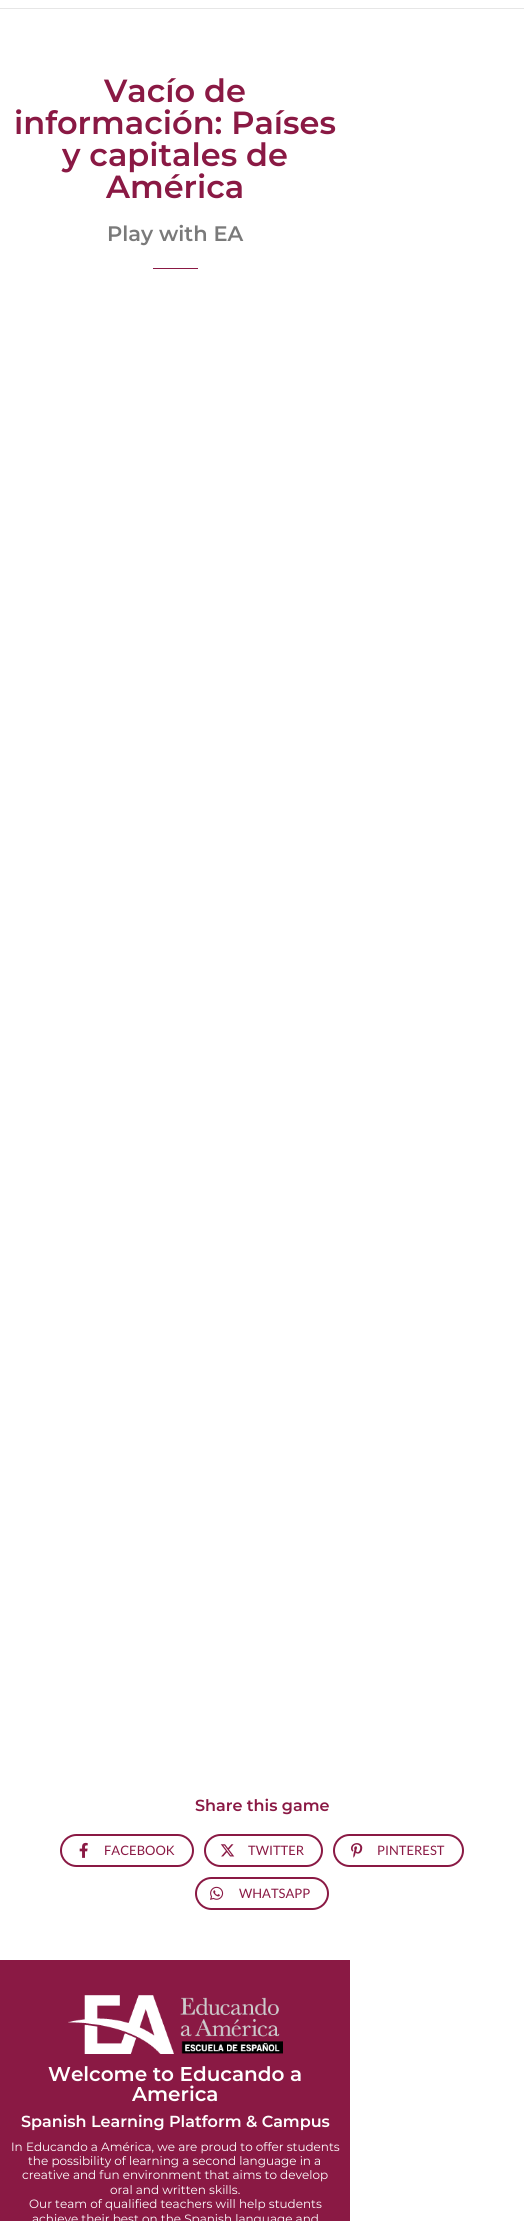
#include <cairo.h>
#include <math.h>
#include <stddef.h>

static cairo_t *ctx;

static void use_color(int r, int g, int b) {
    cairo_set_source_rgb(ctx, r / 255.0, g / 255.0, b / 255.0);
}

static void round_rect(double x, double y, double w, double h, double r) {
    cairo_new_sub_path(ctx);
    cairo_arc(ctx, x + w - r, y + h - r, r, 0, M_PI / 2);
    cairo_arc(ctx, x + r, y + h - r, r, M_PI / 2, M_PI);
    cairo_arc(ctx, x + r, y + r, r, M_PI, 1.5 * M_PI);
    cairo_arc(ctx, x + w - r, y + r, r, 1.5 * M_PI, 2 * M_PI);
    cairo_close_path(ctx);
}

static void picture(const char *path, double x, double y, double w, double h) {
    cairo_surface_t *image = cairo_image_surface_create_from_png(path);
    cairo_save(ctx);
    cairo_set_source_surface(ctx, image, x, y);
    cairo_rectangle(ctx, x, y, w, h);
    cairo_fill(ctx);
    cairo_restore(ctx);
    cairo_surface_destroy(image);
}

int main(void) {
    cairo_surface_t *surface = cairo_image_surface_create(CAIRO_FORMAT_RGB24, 524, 2221);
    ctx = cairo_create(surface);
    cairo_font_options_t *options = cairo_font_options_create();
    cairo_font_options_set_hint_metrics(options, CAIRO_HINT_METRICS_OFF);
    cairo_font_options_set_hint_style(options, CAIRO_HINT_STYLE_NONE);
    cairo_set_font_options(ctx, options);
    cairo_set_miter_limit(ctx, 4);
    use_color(255, 255, 255);
    cairo_paint(ctx);
    use_color(230, 230, 230);
    cairo_rectangle(ctx, 0, 8, 524, 1);
    cairo_fill(ctx);
    cairo_select_font_face(ctx, "Montserrat SemiBold", CAIRO_FONT_SLANT_NORMAL, CAIRO_FONT_WEIGHT_NORMAL);
    cairo_set_font_size(ctx, 32);
    use_color(138, 25, 68);
    cairo_move_to(ctx, 104, 102);
    cairo_show_text(ctx, "Vacío de");
    cairo_move_to(ctx, 14, 134);
    cairo_show_text(ctx, "información: Países");
    cairo_move_to(ctx, 62, 166);
    cairo_show_text(ctx, "y capitales de");
    cairo_move_to(ctx, 106, 198);
    cairo_show_text(ctx, "América");
    cairo_set_font_size(ctx, 21);
    use_color(122, 122, 122);
    cairo_move_to(ctx, 107, 241);
    cairo_show_text(ctx, "Play with EA");
    use_color(138, 25, 68);
    cairo_rectangle(ctx, 153, 268, 45, 1);
    cairo_fill(ctx);
    cairo_set_font_size(ctx, 16);
    cairo_move_to(ctx, 195, 1811);
    cairo_show_text(ctx, "Share this game");
    round_rect(61, 1835, 132, 31, 15.5);
    cairo_stroke(ctx);
    picture("img1.png", 79, 1842, 9, 16);
    cairo_select_font_face(ctx, "Lato", CAIRO_FONT_SLANT_NORMAL, CAIRO_FONT_WEIGHT_NORMAL);
    cairo_set_font_size(ctx, 13);
    cairo_move_to(ctx, 104, 1855);
    cairo_show_text(ctx, "FACEBOOK");
    round_rect(205, 1835, 117, 31, 15.5);
    cairo_stroke(ctx);
    picture("img2.png", 220, 1844, 15, 13);
    cairo_move_to(ctx, 248, 1855);
    cairo_show_text(ctx, "TWITTER");
    round_rect(334, 1835, 129, 31, 15.5);
    cairo_stroke(ctx);
    picture("img3.png", 351, 1843, 12, 15);
    cairo_move_to(ctx, 377, 1855);
    cairo_show_text(ctx, "PINTEREST");
    round_rect(196, 1878, 132, 31, 15.5);
    cairo_stroke(ctx);
    picture("img4.png", 210, 1886, 14, 14);
    cairo_move_to(ctx, 239, 1898);
    cairo_show_text(ctx, "WHATSAPP");
    cairo_rectangle(ctx, 0, 1960, 350, 261);
    cairo_fill(ctx);
    picture("img5.png", 68, 1995, 215, 59);
    cairo_select_font_face(ctx, "Montserrat SemiBold", CAIRO_FONT_SLANT_NORMAL, CAIRO_FONT_WEIGHT_NORMAL);
    cairo_set_font_size(ctx, 20);
    use_color(255, 255, 255);
    cairo_move_to(ctx, 48, 2081);
    cairo_show_text(ctx, "Welcome to Educando a");
    cairo_move_to(ctx, 132, 2101);
    cairo_show_text(ctx, "America");
    cairo_set_font_size(ctx, 16);
    cairo_move_to(ctx, 21, 2127);
    cairo_show_text(ctx, "Spanish Learning Platform & Campus");
    cairo_select_font_face(ctx, "Montserrat", CAIRO_FONT_SLANT_NORMAL, CAIRO_FONT_WEIGHT_NORMAL);
    cairo_set_font_size(ctx, 12);
    cairo_move_to(ctx, 11, 2151);
    cairo_show_text(ctx, "In Educando a América, we are proud to offer students");
    cairo_move_to(ctx, 28, 2165);
    cairo_show_text(ctx, "the possibility of learning a second language in a");
    cairo_move_to(ctx, 22, 2179);
    cairo_show_text(ctx, "creative and fun environment that aims to develop");
    cairo_move_to(ctx, 110, 2194);
    cairo_show_text(ctx, "oral and written skills.");
    cairo_move_to(ctx, 29, 2208);
    cairo_show_text(ctx, "Our team of qualified teachers will help students");
    cairo_move_to(ctx, 32, 2223);
    cairo_show_text(ctx, "achieve their best on the Spanish language and");
    cairo_surface_write_to_png(surface, "result.png");
    cairo_font_options_destroy(options);
    cairo_destroy(ctx);
    cairo_surface_destroy(surface);
    return 0;
}
